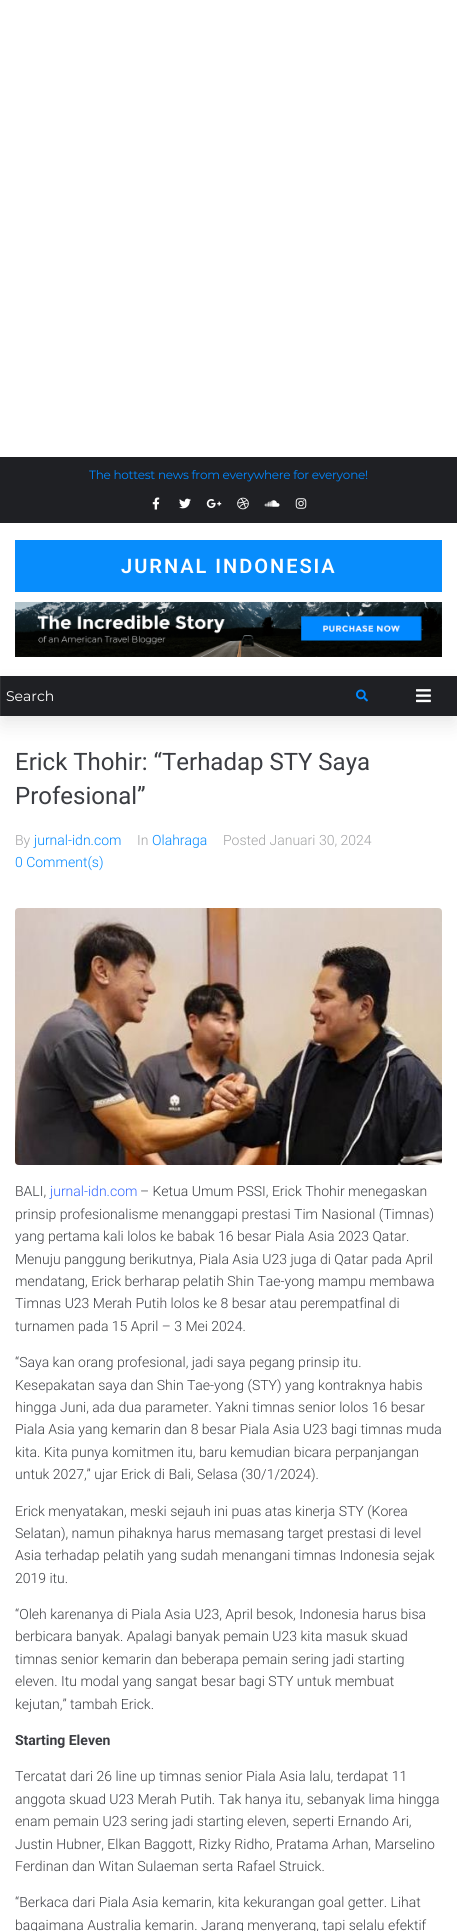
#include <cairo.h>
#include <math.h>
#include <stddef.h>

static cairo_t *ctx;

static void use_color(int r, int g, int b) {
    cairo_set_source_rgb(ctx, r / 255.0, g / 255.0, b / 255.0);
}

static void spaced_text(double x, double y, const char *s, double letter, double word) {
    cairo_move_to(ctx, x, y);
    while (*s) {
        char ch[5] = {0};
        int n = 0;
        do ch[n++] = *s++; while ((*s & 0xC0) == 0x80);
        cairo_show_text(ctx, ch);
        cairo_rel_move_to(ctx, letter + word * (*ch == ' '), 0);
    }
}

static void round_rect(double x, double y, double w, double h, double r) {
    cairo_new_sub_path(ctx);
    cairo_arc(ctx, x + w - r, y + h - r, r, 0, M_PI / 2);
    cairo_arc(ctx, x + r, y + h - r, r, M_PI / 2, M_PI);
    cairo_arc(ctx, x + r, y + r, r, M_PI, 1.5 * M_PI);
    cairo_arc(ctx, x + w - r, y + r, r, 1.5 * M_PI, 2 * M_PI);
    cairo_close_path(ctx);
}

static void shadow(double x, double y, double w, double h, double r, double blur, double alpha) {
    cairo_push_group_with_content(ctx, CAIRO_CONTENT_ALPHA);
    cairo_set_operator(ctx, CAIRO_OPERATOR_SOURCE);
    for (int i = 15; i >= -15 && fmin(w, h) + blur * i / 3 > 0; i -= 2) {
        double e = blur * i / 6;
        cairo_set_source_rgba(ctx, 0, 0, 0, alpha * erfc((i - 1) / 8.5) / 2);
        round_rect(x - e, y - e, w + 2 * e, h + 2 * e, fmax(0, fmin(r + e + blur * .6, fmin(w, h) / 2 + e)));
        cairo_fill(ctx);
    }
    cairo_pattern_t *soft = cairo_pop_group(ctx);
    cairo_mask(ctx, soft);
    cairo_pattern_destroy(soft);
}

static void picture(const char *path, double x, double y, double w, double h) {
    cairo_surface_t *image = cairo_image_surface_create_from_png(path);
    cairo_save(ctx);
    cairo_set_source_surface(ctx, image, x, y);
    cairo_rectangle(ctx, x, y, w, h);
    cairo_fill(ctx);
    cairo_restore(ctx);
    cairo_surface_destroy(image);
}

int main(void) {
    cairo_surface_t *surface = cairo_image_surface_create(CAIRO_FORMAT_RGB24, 457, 1931);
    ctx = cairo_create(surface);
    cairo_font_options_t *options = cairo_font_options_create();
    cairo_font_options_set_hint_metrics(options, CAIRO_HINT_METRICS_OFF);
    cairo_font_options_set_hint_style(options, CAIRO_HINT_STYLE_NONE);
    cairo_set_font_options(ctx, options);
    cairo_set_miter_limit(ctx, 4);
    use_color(255, 255, 255);
    cairo_paint(ctx);
    use_color(31, 32, 36);
    cairo_rectangle(ctx, 0, 457, 457, 66);
    cairo_fill(ctx);
    cairo_select_font_face(ctx, "Montserrat", CAIRO_FONT_SLANT_NORMAL, CAIRO_FONT_WEIGHT_NORMAL);
    cairo_set_font_size(ctx, 12);
    use_color(0, 136, 255);
    spaced_text(89, 479, "The hottest news from everywhere for everyone!", -0.25, 0);
    picture("img1.png", 152, 497, 8, 13);
    picture("img2.png", 179, 498, 12, 11);
    picture("img3.png", 206, 499, 16, 9);
    picture("img4.png", 237, 497, 12, 13);
    picture("img5.png", 264, 500, 16, 7);
    picture("img6.png", 295, 498, 12, 11);
    use_color(8, 141, 252);
    cairo_rectangle(ctx, 15, 540, 427, 52);
    cairo_fill(ctx);
    cairo_select_font_face(ctx, "Roboto SemiBold", CAIRO_FONT_SLANT_NORMAL, CAIRO_FONT_WEIGHT_NORMAL);
    cairo_set_font_size(ctx, 20);
    use_color(255, 255, 255);
    spaced_text(121, 573, "JURNAL INDONESIA", 2, 0);
    picture("img7.png", 15, 602, 427, 55);
    use_color(0, 0, 0);
    shadow(2, 687, 453, 36, 0, 10, 0.1);
    use_color(31, 32, 36);
    cairo_rectangle(ctx, 1, 676, 456, 40);
    cairo_fill(ctx);
    use_color(47, 48, 51);
    cairo_rectangle(ctx, 0, 676, 1, 40);
    cairo_fill(ctx);
    cairo_select_font_face(ctx, "Montserrat", CAIRO_FONT_SLANT_NORMAL, CAIRO_FONT_WEIGHT_NORMAL);
    cairo_set_font_size(ctx, 14);
    use_color(255, 255, 255);
    cairo_move_to(ctx, 6, 701);
    cairo_show_text(ctx, "Search");
    picture("img8.png", 356, 689, 12, 13);
    picture("img9.png", 416, 689, 15, 14);
    cairo_select_font_face(ctx, "Roboto", CAIRO_FONT_SLANT_NORMAL, CAIRO_FONT_WEIGHT_NORMAL);
    cairo_set_font_size(ctx, 24);
    use_color(59, 61, 66);
    cairo_move_to(ctx, 15, 770);
    cairo_show_text(ctx, "Erick Thohir: “Terhadap STY Saya");
    cairo_move_to(ctx, 15, 804);
    cairo_show_text(ctx, "Profesional”");
    cairo_select_font_face(ctx, "Roboto Light", CAIRO_FONT_SLANT_NORMAL, CAIRO_FONT_WEIGHT_NORMAL);
    cairo_set_font_size(ctx, 14);
    use_color(161, 162, 164);
    cairo_move_to(ctx, 15, 845);
    cairo_show_text(ctx, "By");
    use_color(0, 136, 255);
    cairo_move_to(ctx, 34, 845);
    cairo_show_text(ctx, "jurnal-idn.com");
    use_color(161, 162, 164);
    cairo_move_to(ctx, 137, 845);
    cairo_show_text(ctx, "In");
    use_color(0, 136, 255);
    cairo_move_to(ctx, 152, 845);
    cairo_show_text(ctx, "Olahraga");
    use_color(161, 162, 164);
    cairo_move_to(ctx, 223, 845);
    cairo_show_text(ctx, "Posted Januari 30, 2024");
    use_color(0, 136, 255);
    cairo_move_to(ctx, 15, 867);
    cairo_show_text(ctx, "0 Comment(s)");
    picture("img10.png", 15, 908, 427, 257);
    use_color(59, 61, 66);
    cairo_move_to(ctx, 15, 1196);
    cairo_show_text(ctx, "BALI,");
    use_color(51, 102, 255);
    cairo_move_to(ctx, 50, 1196);
    cairo_show_text(ctx, "jurnal-idn.com");
    use_color(59, 61, 66);
    cairo_move_to(ctx, 140, 1196);
    cairo_show_text(ctx, "– Ketua Umum PSSI, Erick Thohir menegaskan");
    cairo_move_to(ctx, 15, 1219);
    cairo_show_text(ctx, "prinsip profesionalisme menanggapi prestasi Tim Nasional (Timnas)");
    cairo_move_to(ctx, 15, 1241);
    cairo_show_text(ctx, "yang pertama kali lolos ke babak 16 besar Piala Asia 2023 Qatar.");
    cairo_move_to(ctx, 15, 1264);
    cairo_show_text(ctx, "Menuju panggung berikutnya, Piala Asia U23 juga di Qatar pada April");
    cairo_move_to(ctx, 15, 1286);
    cairo_show_text(ctx, "mendatang, Erick berharap pelatih Shin Tae-yong mampu membawa");
    cairo_move_to(ctx, 15, 1308);
    cairo_show_text(ctx, "Timnas U23 Merah Putih lolos ke 8 besar atau perempatfinal di");
    cairo_move_to(ctx, 15, 1331);
    cairo_show_text(ctx, "turnamen pada 15 April – 3 Mei 2024.");
    cairo_move_to(ctx, 15, 1367);
    cairo_show_text(ctx, "“Saya kan orang profesional, jadi saya pegang prinsip itu.");
    cairo_move_to(ctx, 15, 1390);
    cairo_show_text(ctx, "Kesepakatan saya dan Shin Tae-yong (STY) yang kontraknya habis");
    cairo_move_to(ctx, 15, 1412);
    cairo_show_text(ctx, "hingga Juni, ada dua parameter. Yakni timnas senior lolos 16 besar");
    cairo_move_to(ctx, 15, 1434);
    cairo_show_text(ctx, "Piala Asia yang kemarin dan 8 besar Piala Asia U23 bagi timnas muda");
    cairo_move_to(ctx, 15, 1457);
    cairo_show_text(ctx, "kita. Kita punya komitmen itu, baru kemudian bicara perpanjangan");
    cairo_move_to(ctx, 15, 1479);
    cairo_show_text(ctx, "untuk 2027,” ujar Erick di Bali, Selasa (30/1/2024).");
    cairo_move_to(ctx, 15, 1516);
    cairo_show_text(ctx, "Erick menyatakan, meski sejauh ini puas atas kinerja STY (Korea");
    cairo_move_to(ctx, 15, 1538);
    cairo_show_text(ctx, "Selatan), namun pihaknya harus memasang target prestasi di level");
    cairo_move_to(ctx, 15, 1560);
    cairo_show_text(ctx, "Asia terhadap pelatih yang sudah menangani timnas Indonesia sejak");
    cairo_move_to(ctx, 15, 1583);
    cairo_show_text(ctx, "2019 itu.");
    cairo_move_to(ctx, 15, 1619);
    cairo_show_text(ctx, "“Oleh karenanya di Piala Asia U23, April besok, Indonesia harus bisa");
    cairo_move_to(ctx, 15, 1641);
    cairo_show_text(ctx, "berbicara banyak. Apalagi banyak pemain U23 kita masuk skuad");
    cairo_move_to(ctx, 15, 1664);
    cairo_show_text(ctx, "timnas senior kemarin dan beberapa pemain sering jadi starting");
    cairo_move_to(ctx, 15, 1686);
    cairo_show_text(ctx, "eleven. Itu modal yang sangat besar bagi STY untuk membuat");
    cairo_move_to(ctx, 15, 1709);
    cairo_show_text(ctx, "kejutan,” tambah Erick.");
    cairo_select_font_face(ctx, "Roboto", CAIRO_FONT_SLANT_NORMAL, CAIRO_FONT_WEIGHT_BOLD);
    cairo_move_to(ctx, 15, 1745);
    cairo_show_text(ctx, "Starting Eleven");
    cairo_select_font_face(ctx, "Roboto Light", CAIRO_FONT_SLANT_NORMAL, CAIRO_FONT_WEIGHT_NORMAL);
    cairo_move_to(ctx, 15, 1781);
    cairo_show_text(ctx, "Tercatat dari 26 line up timnas senior Piala Asia lalu, terdapat 11");
    cairo_move_to(ctx, 15, 1804);
    cairo_show_text(ctx, "anggota skuad U23 Merah Putih. Tak hanya itu, sebanyak lima hingga");
    cairo_move_to(ctx, 15, 1826);
    cairo_show_text(ctx, "enam pemain U23 sering jadi starting eleven, seperti Ernando Ari,");
    cairo_move_to(ctx, 15, 1849);
    cairo_show_text(ctx, "Justin Hubner, Elkan Baggott, Rizky Ridho, Pratama Arhan, Marselino");
    cairo_move_to(ctx, 15, 1871);
    cairo_show_text(ctx, "Ferdinan dan Witan Sulaeman serta Rafael Struick.");
    cairo_move_to(ctx, 15, 1907);
    cairo_show_text(ctx, "“Berkaca dari Piala Asia kemarin, kita kekurangan goal getter. Lihat");
    cairo_move_to(ctx, 15, 1930);
    cairo_show_text(ctx, "bagaimana Australia kemarin. Jarang menyerang, tapi selalu efektif");
    cairo_surface_write_to_png(surface, "result.png");
    cairo_font_options_destroy(options);
    cairo_destroy(ctx);
    cairo_surface_destroy(surface);
    return 0;
}
